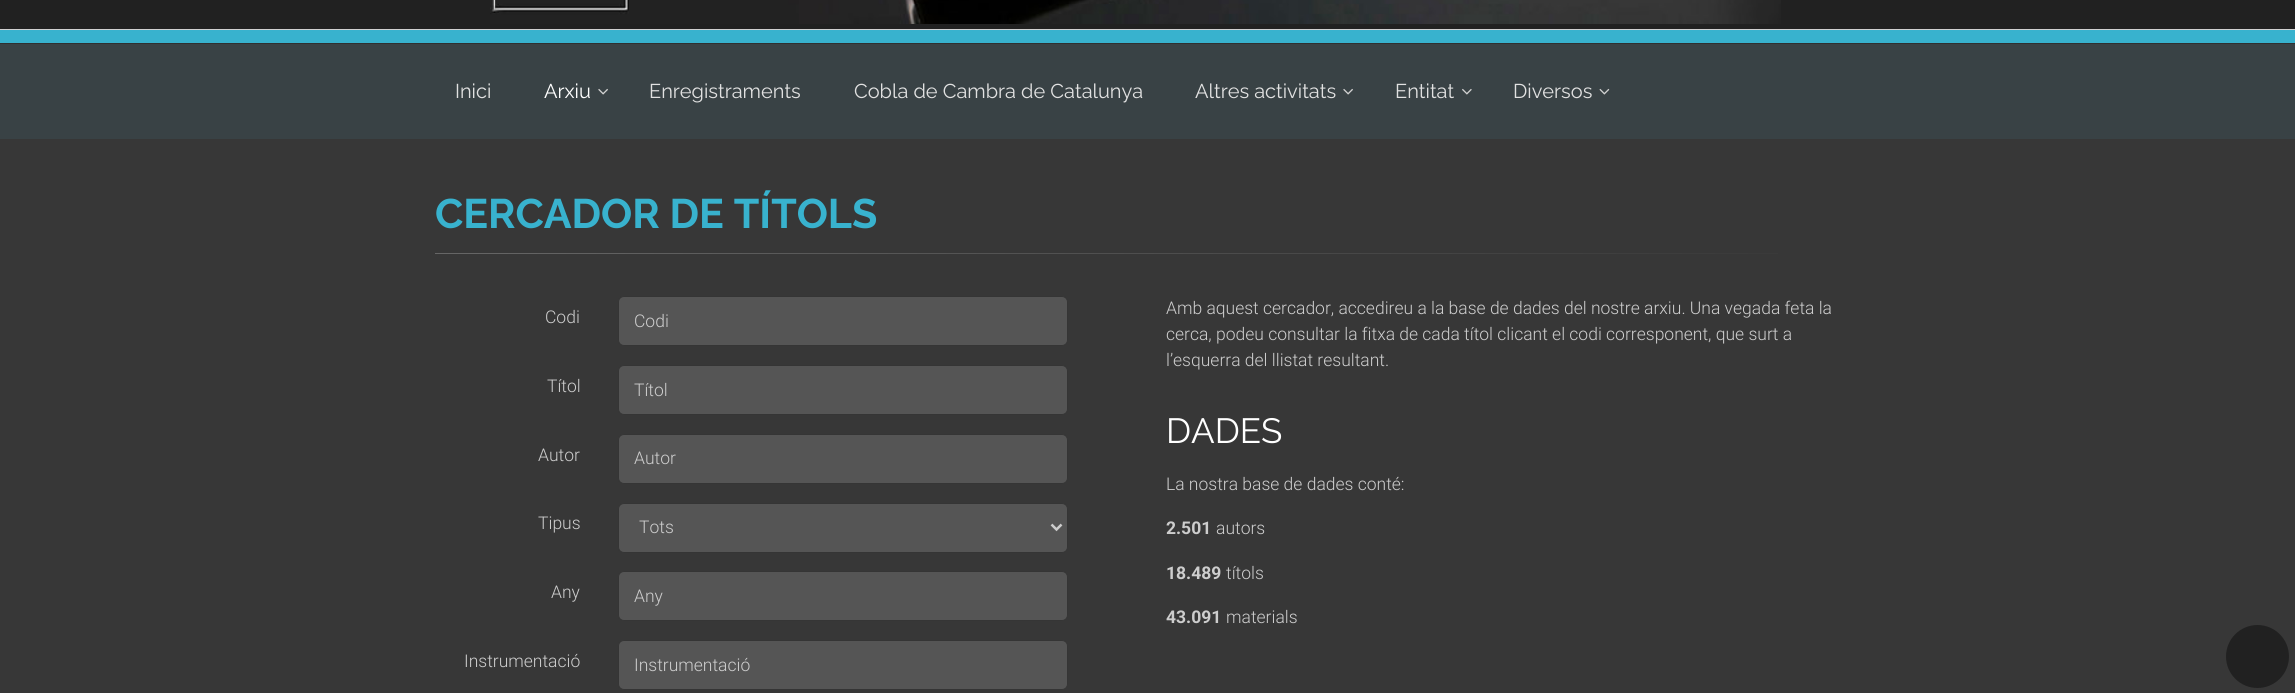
#include <cairo.h>
#include <math.h>
#include <stddef.h>

static cairo_t *ctx;

static void use_color(int r, int g, int b) {
    cairo_set_source_rgb(ctx, r / 255.0, g / 255.0, b / 255.0);
}

static void round_rect(double x, double y, double w, double h, double r) {
    cairo_new_sub_path(ctx);
    cairo_arc(ctx, x + w - r, y + h - r, r, 0, M_PI / 2);
    cairo_arc(ctx, x + r, y + h - r, r, M_PI / 2, M_PI);
    cairo_arc(ctx, x + r, y + r, r, M_PI, 1.5 * M_PI);
    cairo_arc(ctx, x + w - r, y + r, r, 1.5 * M_PI, 2 * M_PI);
    cairo_close_path(ctx);
}

static void picture(const char *path, double x, double y, double w, double h) {
    cairo_surface_t *image = cairo_image_surface_create_from_png(path);
    cairo_save(ctx);
    cairo_set_source_surface(ctx, image, x, y);
    cairo_rectangle(ctx, x, y, w, h);
    cairo_fill(ctx);
    cairo_restore(ctx);
    cairo_surface_destroy(image);
}

int main(void) {
    cairo_surface_t *surface = cairo_image_surface_create(CAIRO_FORMAT_RGB24, 2295, 693);
    ctx = cairo_create(surface);
    cairo_font_options_t *options = cairo_font_options_create();
    cairo_font_options_set_hint_metrics(options, CAIRO_HINT_METRICS_OFF);
    cairo_font_options_set_hint_style(options, CAIRO_HINT_STYLE_NONE);
    cairo_set_font_options(ctx, options);
    cairo_set_miter_limit(ctx, 4);
    cairo_pattern_t *gradient;
    use_color(57, 66, 69);
    cairo_paint(ctx);
    use_color(33, 33, 33);
    cairo_rectangle(ctx, 0, 0, 2295, 29);
    cairo_fill(ctx);
    use_color(208, 208, 208);
    cairo_rectangle(ctx, 0, 29, 2295, 1);
    cairo_fill(ctx);
    picture("img1.png", 490, 0, 1291, 24);
    use_color(56, 178, 206);
    cairo_rectangle(ctx, 0, 30, 2295, 13);
    cairo_fill(ctx);
    use_color(48, 48, 48);
    cairo_rectangle(ctx, 0, 43, 2295, 1);
    cairo_fill(ctx);
    cairo_select_font_face(ctx, "Raleway", CAIRO_FONT_SLANT_NORMAL, CAIRO_FONT_WEIGHT_NORMAL);
    cairo_set_font_size(ctx, 20);
    use_color(225, 225, 225);
    cairo_move_to(ctx, 455, 98);
    cairo_show_text(ctx, "Inici");
    use_color(255, 255, 255);
    cairo_move_to(ctx, 544, 98);
    cairo_show_text(ctx, "Arxiu");
    picture("img2.png", 598, 88, 10, 7);
    use_color(225, 225, 225);
    cairo_move_to(ctx, 649, 98);
    cairo_show_text(ctx, "Enregistraments");
    cairo_move_to(ctx, 854, 98);
    cairo_show_text(ctx, "Cobla de Cambra de Catalunya");
    cairo_move_to(ctx, 1195, 98);
    cairo_show_text(ctx, "Altres activitats");
    picture("img2.png", 1343, 88, 10, 7);
    cairo_move_to(ctx, 1395, 98);
    cairo_show_text(ctx, "Entitat");
    picture("img3.png", 1462, 88, 10, 7);
    cairo_move_to(ctx, 1513, 98);
    cairo_show_text(ctx, "Diversos");
    picture("img4.png", 1599, 88, 11, 7);
    use_color(55, 55, 55);
    cairo_rectangle(ctx, 0, 139, 2295, 554);
    cairo_fill(ctx);
    cairo_select_font_face(ctx, "Raleway", CAIRO_FONT_SLANT_NORMAL, CAIRO_FONT_WEIGHT_BOLD);
    cairo_set_font_size(ctx, 41.25);
    use_color(56, 178, 206);
    cairo_move_to(ctx, 435, 228);
    cairo_show_text(ctx, "CERCADOR DE TÍTOLS");
    gradient = cairo_pattern_create_linear(435, 253, 1860, 253);
    cairo_pattern_add_color_stop_rgba(gradient, 0, 0.4, 0.4, 0.4, 1);
    cairo_pattern_add_color_stop_rgba(gradient, 0.35, 0.333, 0.333, 0.333, 1);
    cairo_pattern_add_color_stop_rgba(gradient, 0.7, 0.267, 0.267, 0.267, 1);
    cairo_pattern_add_color_stop_rgba(gradient, 1, 0.216, 0.216, 0.216, 1);
    cairo_set_source(ctx, gradient);
    cairo_pattern_destroy(gradient);
    cairo_rectangle(ctx, 435, 253, 1343, 1);
    cairo_fill(ctx);
    cairo_select_font_face(ctx, "Roboto Light", CAIRO_FONT_SLANT_NORMAL, CAIRO_FONT_WEIGHT_NORMAL);
    cairo_set_font_size(ctx, 17.5);
    use_color(205, 205, 205);
    cairo_move_to(ctx, 545, 323);
    cairo_show_text(ctx, "Codi");
    use_color(85, 85, 85);
    round_rect(618.5, 296.5, 449, 49, 5.5);
    cairo_fill_preserve(ctx);
    use_color(53, 53, 53);
    cairo_set_line_width(ctx, 1);
    cairo_stroke(ctx);
    use_color(205, 205, 205);
    cairo_move_to(ctx, 634, 327);
    cairo_show_text(ctx, "Codi");
    cairo_move_to(ctx, 547, 392);
    cairo_show_text(ctx, "Títol");
    use_color(85, 85, 85);
    round_rect(618.5, 365.5, 449, 49, 5.5);
    cairo_fill_preserve(ctx);
    use_color(53, 53, 53);
    cairo_stroke(ctx);
    use_color(205, 205, 205);
    cairo_move_to(ctx, 634, 396);
    cairo_show_text(ctx, "Títol");
    cairo_move_to(ctx, 538, 461);
    cairo_show_text(ctx, "Autor");
    use_color(85, 85, 85);
    round_rect(618.5, 434.5, 449, 49, 5.5);
    cairo_fill_preserve(ctx);
    use_color(53, 53, 53);
    cairo_stroke(ctx);
    use_color(205, 205, 205);
    cairo_move_to(ctx, 634, 464);
    cairo_show_text(ctx, "Autor");
    cairo_move_to(ctx, 538, 529);
    cairo_show_text(ctx, "Tipus");
    use_color(85, 85, 85);
    round_rect(618.5, 503.5, 449, 49, 5.5);
    cairo_fill_preserve(ctx);
    use_color(53, 53, 53);
    cairo_stroke(ctx);
    cairo_new_path(ctx);
    cairo_move_to(ctx, 1051.5, 524.5);
    cairo_line_to(ctx, 1056.5, 529.5);
    cairo_line_to(ctx, 1061.5, 524.5);
    use_color(205, 205, 205);
    cairo_set_line_width(ctx, 2.5);
    cairo_stroke(ctx);
    cairo_move_to(ctx, 639, 533);
    cairo_show_text(ctx, "Tots");
    cairo_move_to(ctx, 551, 598);
    cairo_show_text(ctx, "Any");
    use_color(85, 85, 85);
    round_rect(618.5, 571.5, 449, 49, 5.5);
    cairo_fill_preserve(ctx);
    use_color(53, 53, 53);
    cairo_set_line_width(ctx, 1);
    cairo_stroke(ctx);
    use_color(205, 205, 205);
    cairo_move_to(ctx, 634, 602);
    cairo_show_text(ctx, "Any");
    cairo_move_to(ctx, 464, 667);
    cairo_show_text(ctx, "Instrumentació");
    use_color(85, 85, 85);
    round_rect(618.5, 640.5, 449, 49, 5.5);
    cairo_fill_preserve(ctx);
    use_color(53, 53, 53);
    cairo_stroke(ctx);
    use_color(205, 205, 205);
    cairo_move_to(ctx, 634, 671);
    cairo_show_text(ctx, "Instrumentació");
    cairo_move_to(ctx, 1166, 314);
    cairo_show_text(ctx, "Amb aquest cercador, accedireu a la base de dades del nostre arxiu. Una vegada feta la");
    cairo_move_to(ctx, 1166, 340);
    cairo_show_text(ctx, "cerca, podeu consultar la fitxa de cada títol clicant el codi corresponent, que surt a");
    cairo_move_to(ctx, 1166, 366);
    cairo_show_text(ctx, "l’esquerra del llistat resultant.");
    cairo_select_font_face(ctx, "Raleway", CAIRO_FONT_SLANT_NORMAL, CAIRO_FONT_WEIGHT_NORMAL);
    cairo_set_font_size(ctx, 35);
    use_color(255, 255, 255);
    cairo_move_to(ctx, 1166, 443);
    cairo_show_text(ctx, "DADES");
    cairo_select_font_face(ctx, "Roboto Light", CAIRO_FONT_SLANT_NORMAL, CAIRO_FONT_WEIGHT_NORMAL);
    cairo_set_font_size(ctx, 17.5);
    use_color(205, 205, 205);
    cairo_move_to(ctx, 1166, 490);
    cairo_show_text(ctx, "La nostra base de dades conté:");
    cairo_select_font_face(ctx, "Roboto", CAIRO_FONT_SLANT_NORMAL, CAIRO_FONT_WEIGHT_BOLD);
    cairo_move_to(ctx, 1166, 534);
    cairo_show_text(ctx, "2.501");
    cairo_select_font_face(ctx, "Roboto Light", CAIRO_FONT_SLANT_NORMAL, CAIRO_FONT_WEIGHT_NORMAL);
    cairo_move_to(ctx, 1216, 534);
    cairo_show_text(ctx, "autors");
    cairo_select_font_face(ctx, "Roboto", CAIRO_FONT_SLANT_NORMAL, CAIRO_FONT_WEIGHT_BOLD);
    cairo_move_to(ctx, 1166, 579);
    cairo_show_text(ctx, "18.489");
    cairo_select_font_face(ctx, "Roboto Light", CAIRO_FONT_SLANT_NORMAL, CAIRO_FONT_WEIGHT_NORMAL);
    cairo_move_to(ctx, 1226, 579);
    cairo_show_text(ctx, "títols");
    cairo_select_font_face(ctx, "Roboto", CAIRO_FONT_SLANT_NORMAL, CAIRO_FONT_WEIGHT_BOLD);
    cairo_move_to(ctx, 1166, 623);
    cairo_show_text(ctx, "43.091");
    cairo_select_font_face(ctx, "Roboto Light", CAIRO_FONT_SLANT_NORMAL, CAIRO_FONT_WEIGHT_NORMAL);
    cairo_move_to(ctx, 1226, 623);
    cairo_show_text(ctx, "materials");
    use_color(33, 33, 33);
    cairo_new_path(ctx);
    cairo_arc(ctx, 2257.5, 656.5, 31.5, 0, 2 * M_PI);
    cairo_fill(ctx);
    cairo_surface_write_to_png(surface, "result.png");
    cairo_font_options_destroy(options);
    cairo_destroy(ctx);
    cairo_surface_destroy(surface);
    return 0;
}
